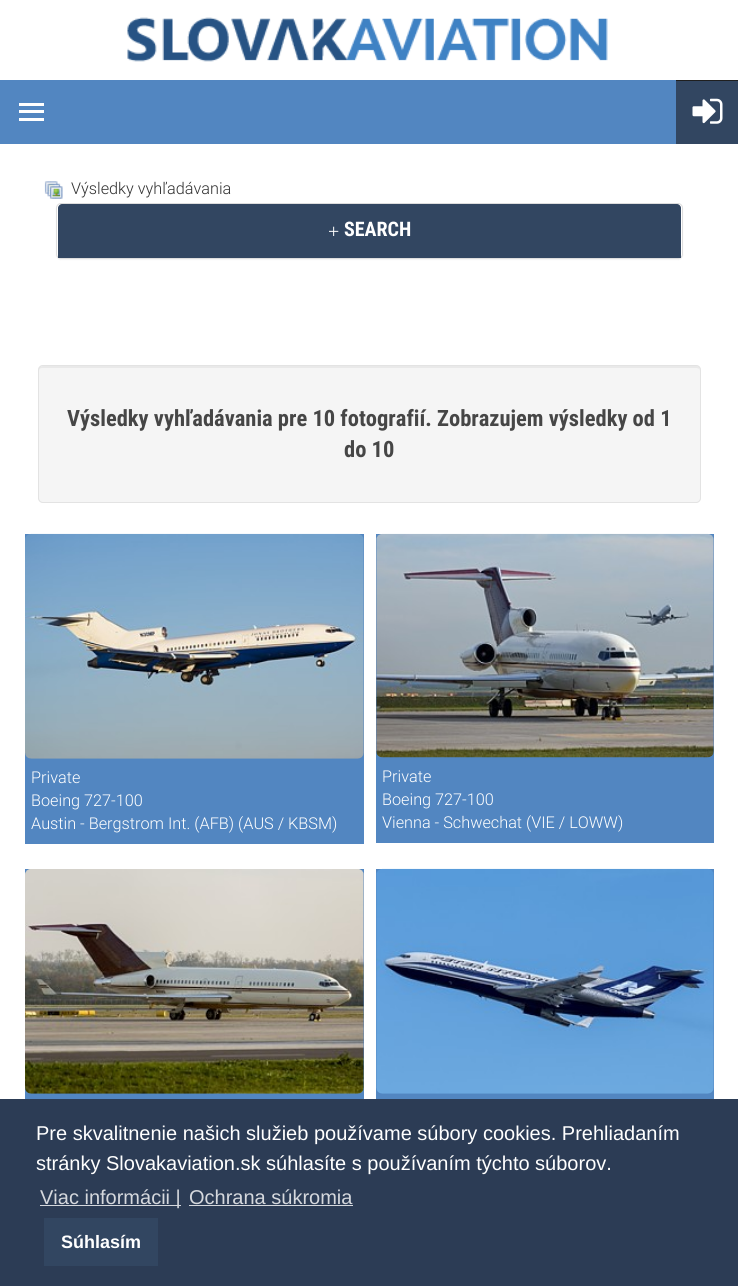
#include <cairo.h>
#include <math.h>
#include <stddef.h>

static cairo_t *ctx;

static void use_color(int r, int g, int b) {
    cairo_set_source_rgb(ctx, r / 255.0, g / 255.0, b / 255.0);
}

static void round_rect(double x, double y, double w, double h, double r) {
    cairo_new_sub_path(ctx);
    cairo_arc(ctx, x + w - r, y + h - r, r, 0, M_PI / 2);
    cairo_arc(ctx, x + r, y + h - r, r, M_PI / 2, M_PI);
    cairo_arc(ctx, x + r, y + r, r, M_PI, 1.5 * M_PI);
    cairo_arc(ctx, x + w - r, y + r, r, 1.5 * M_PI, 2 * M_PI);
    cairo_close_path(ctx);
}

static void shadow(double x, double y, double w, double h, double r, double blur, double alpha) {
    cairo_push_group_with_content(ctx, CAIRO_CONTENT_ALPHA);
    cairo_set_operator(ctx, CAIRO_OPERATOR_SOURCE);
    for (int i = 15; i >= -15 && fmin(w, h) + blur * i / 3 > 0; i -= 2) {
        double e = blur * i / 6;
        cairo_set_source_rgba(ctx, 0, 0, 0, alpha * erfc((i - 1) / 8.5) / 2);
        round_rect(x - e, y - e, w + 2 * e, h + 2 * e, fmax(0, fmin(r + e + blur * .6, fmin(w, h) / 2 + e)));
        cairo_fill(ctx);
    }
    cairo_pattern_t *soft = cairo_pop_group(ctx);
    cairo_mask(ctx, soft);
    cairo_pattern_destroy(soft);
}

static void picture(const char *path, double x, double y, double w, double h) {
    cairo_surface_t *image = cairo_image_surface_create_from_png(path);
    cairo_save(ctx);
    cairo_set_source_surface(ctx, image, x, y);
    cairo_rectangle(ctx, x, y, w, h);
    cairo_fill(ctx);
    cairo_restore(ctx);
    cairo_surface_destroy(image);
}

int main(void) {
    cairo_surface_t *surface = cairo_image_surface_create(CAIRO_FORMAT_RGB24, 738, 1286);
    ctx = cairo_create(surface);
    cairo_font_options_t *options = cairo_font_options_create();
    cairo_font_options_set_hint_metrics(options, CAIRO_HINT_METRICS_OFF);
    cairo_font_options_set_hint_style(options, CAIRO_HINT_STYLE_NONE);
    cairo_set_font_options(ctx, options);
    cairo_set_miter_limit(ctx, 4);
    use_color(255, 255, 255);
    cairo_paint(ctx);
    picture("img1.png", 127, 17, 481, 45);
    use_color(82, 134, 193);
    cairo_rectangle(ctx, 0, 80, 676, 64);
    cairo_fill(ctx);
    use_color(255, 255, 255);
    cairo_rectangle(ctx, 19, 103, 25, 3);
    cairo_fill(ctx);
    cairo_rectangle(ctx, 19, 110, 25, 3);
    cairo_fill(ctx);
    cairo_rectangle(ctx, 19, 118, 25, 3);
    cairo_fill(ctx);
    use_color(31, 31, 31);
    cairo_rectangle(ctx, 676, 80, 62, 1);
    cairo_fill(ctx);
    use_color(50, 70, 97);
    cairo_rectangle(ctx, 676, 81, 62, 63);
    cairo_fill(ctx);
    picture("img2.png", 692, 98, 31, 26);
    picture("img3.png", 44, 181, 19, 18);
    cairo_select_font_face(ctx, "Roboto Light", CAIRO_FONT_SLANT_NORMAL, CAIRO_FONT_WEIGHT_NORMAL);
    cairo_set_font_size(ctx, 16.25);
    use_color(49, 49, 49);
    cairo_move_to(ctx, 71, 194);
    cairo_show_text(ctx, "Výsledky vyhľadávania");
    use_color(0, 0, 0);
    shadow(56, 204, 627, 56, 5, 0.5, 0.05);
    use_color(255, 255, 255);
    round_rect(56.5, 203.5, 626, 55, 4.5);
    cairo_fill_preserve(ctx);
    use_color(221, 221, 221);
    cairo_set_line_width(ctx, 1);
    cairo_stroke(ctx);
    use_color(50, 70, 97);
    cairo_new_path(ctx);
    cairo_move_to(ctx, 62, 204);
    cairo_line_to(ctx, 677, 204);
    cairo_curve_to(ctx, 679, 204, 681, 206, 681, 208);
    cairo_line_to(ctx, 681, 258);
    cairo_line_to(ctx, 58, 258);
    cairo_line_to(ctx, 58, 208);
    cairo_curve_to(ctx, 58, 206, 60, 204, 62, 204);
    cairo_close_path(ctx);
    cairo_fill(ctx);
    cairo_select_font_face(ctx, "Liberation Serif", CAIRO_FONT_SLANT_NORMAL, CAIRO_FONT_WEIGHT_NORMAL);
    cairo_set_font_size(ctx, 20);
    use_color(255, 255, 255);
    cairo_move_to(ctx, 328, 238);
    cairo_show_text(ctx, "+");
    cairo_select_font_face(ctx, "Roboto Condensed", CAIRO_FONT_SLANT_NORMAL, CAIRO_FONT_WEIGHT_BOLD);
    cairo_move_to(ctx, 344, 236);
    cairo_show_text(ctx, "SEARCH");
    use_color(245, 245, 245);
    round_rect(38, 365, 663, 138, 5);
    cairo_fill(ctx);
    use_color(233, 233, 233);
    cairo_new_path(ctx);
    cairo_move_to(ctx, 42, 368);
    cairo_line_to(ctx, 696, 368);
    cairo_curve_to(ctx, 698, 368, 700, 369, 700, 371);
    cairo_curve_to(ctx, 700, 368, 699, 366, 696, 366);
    cairo_line_to(ctx, 43, 366);
    cairo_line_to(ctx, 40, 367);
    cairo_line_to(ctx, 39, 368);
    cairo_line_to(ctx, 39, 371);
    cairo_curve_to(ctx, 39, 369, 40, 368, 42, 368);
    cairo_close_path(ctx);
    cairo_fill(ctx);
    round_rect(38.5, 365.5, 662, 137, 4.5);
    use_color(227, 227, 227);
    cairo_stroke(ctx);
    cairo_set_font_size(ctx, 22.5);
    use_color(70, 70, 70);
    cairo_move_to(ctx, 67, 426);
    cairo_show_text(ctx, "Výsledky vyhľadávania pre 10 fotografií. Zobrazujem výsledky od 1");
    cairo_move_to(ctx, 344, 457);
    cairo_show_text(ctx, "do 10");
    use_color(82, 134, 193);
    cairo_rectangle(ctx, 25, 534, 339, 310);
    cairo_fill(ctx);
    picture("img4.png", 25, 533, 339, 226);
    cairo_select_font_face(ctx, "Roboto Light", CAIRO_FONT_SLANT_NORMAL, CAIRO_FONT_WEIGHT_NORMAL);
    cairo_set_font_size(ctx, 16.25);
    use_color(255, 255, 255);
    cairo_move_to(ctx, 31, 783);
    cairo_show_text(ctx, "Private");
    cairo_move_to(ctx, 31, 806);
    cairo_show_text(ctx, "Boeing 727-100");
    cairo_move_to(ctx, 31, 829);
    cairo_show_text(ctx, "Austin - Bergstrom Int. (AFB) (AUS / KBSM)");
    use_color(82, 134, 193);
    cairo_rectangle(ctx, 376, 534, 338, 309);
    cairo_fill(ctx);
    picture("img5.png", 376, 533, 338, 225);
    use_color(255, 255, 255);
    cairo_move_to(ctx, 382, 782);
    cairo_show_text(ctx, "Private");
    cairo_move_to(ctx, 382, 805);
    cairo_show_text(ctx, "Boeing 727-100");
    cairo_move_to(ctx, 382, 828);
    cairo_show_text(ctx, "Vienna - Schwechat (VIE / LOWW)");
    use_color(82, 134, 193);
    cairo_rectangle(ctx, 25, 869, 339, 230);
    cairo_fill(ctx);
    picture("img6.png", 25, 869, 339, 225);
    cairo_rectangle(ctx, 376, 869, 338, 230);
    cairo_fill(ctx);
    picture("img7.png", 376, 868, 338, 226);
    use_color(44, 60, 85);
    cairo_rectangle(ctx, 0, 1099, 738, 187);
    cairo_fill(ctx);
    cairo_select_font_face(ctx, "Liberation Sans", CAIRO_FONT_SLANT_NORMAL, CAIRO_FONT_WEIGHT_NORMAL);
    cairo_set_font_size(ctx, 20);
    use_color(255, 255, 255);
    cairo_move_to(ctx, 36, 1140);
    cairo_show_text(ctx, "Pre skvalitnenie našich služieb používame súbory cookies. Prehliadaním");
    cairo_move_to(ctx, 36, 1170);
    cairo_show_text(ctx, "stránky Slovakaviation.sk súhlasíte s používaním týchto súborov.");
    use_color(213, 216, 221);
    cairo_rectangle(ctx, 40, 1205, 141, 1);
    cairo_fill(ctx);
    cairo_move_to(ctx, 40, 1204);
    cairo_show_text(ctx, "Viac informácii |");
    cairo_move_to(ctx, 189, 1204);
    cairo_show_text(ctx, "Ochrana súkromia");
    cairo_rectangle(ctx, 189, 1205, 164, 1);
    cairo_fill(ctx);
    use_color(50, 70, 97);
    cairo_rectangle(ctx, 44, 1218, 114, 48);
    cairo_fill(ctx);
    cairo_select_font_face(ctx, "Liberation Sans", CAIRO_FONT_SLANT_NORMAL, CAIRO_FONT_WEIGHT_BOLD);
    cairo_set_font_size(ctx, 18);
    use_color(255, 255, 255);
    cairo_move_to(ctx, 61, 1248);
    cairo_show_text(ctx, "Súhlasím");
    cairo_surface_write_to_png(surface, "result.png");
    cairo_font_options_destroy(options);
    cairo_destroy(ctx);
    cairo_surface_destroy(surface);
    return 0;
}
